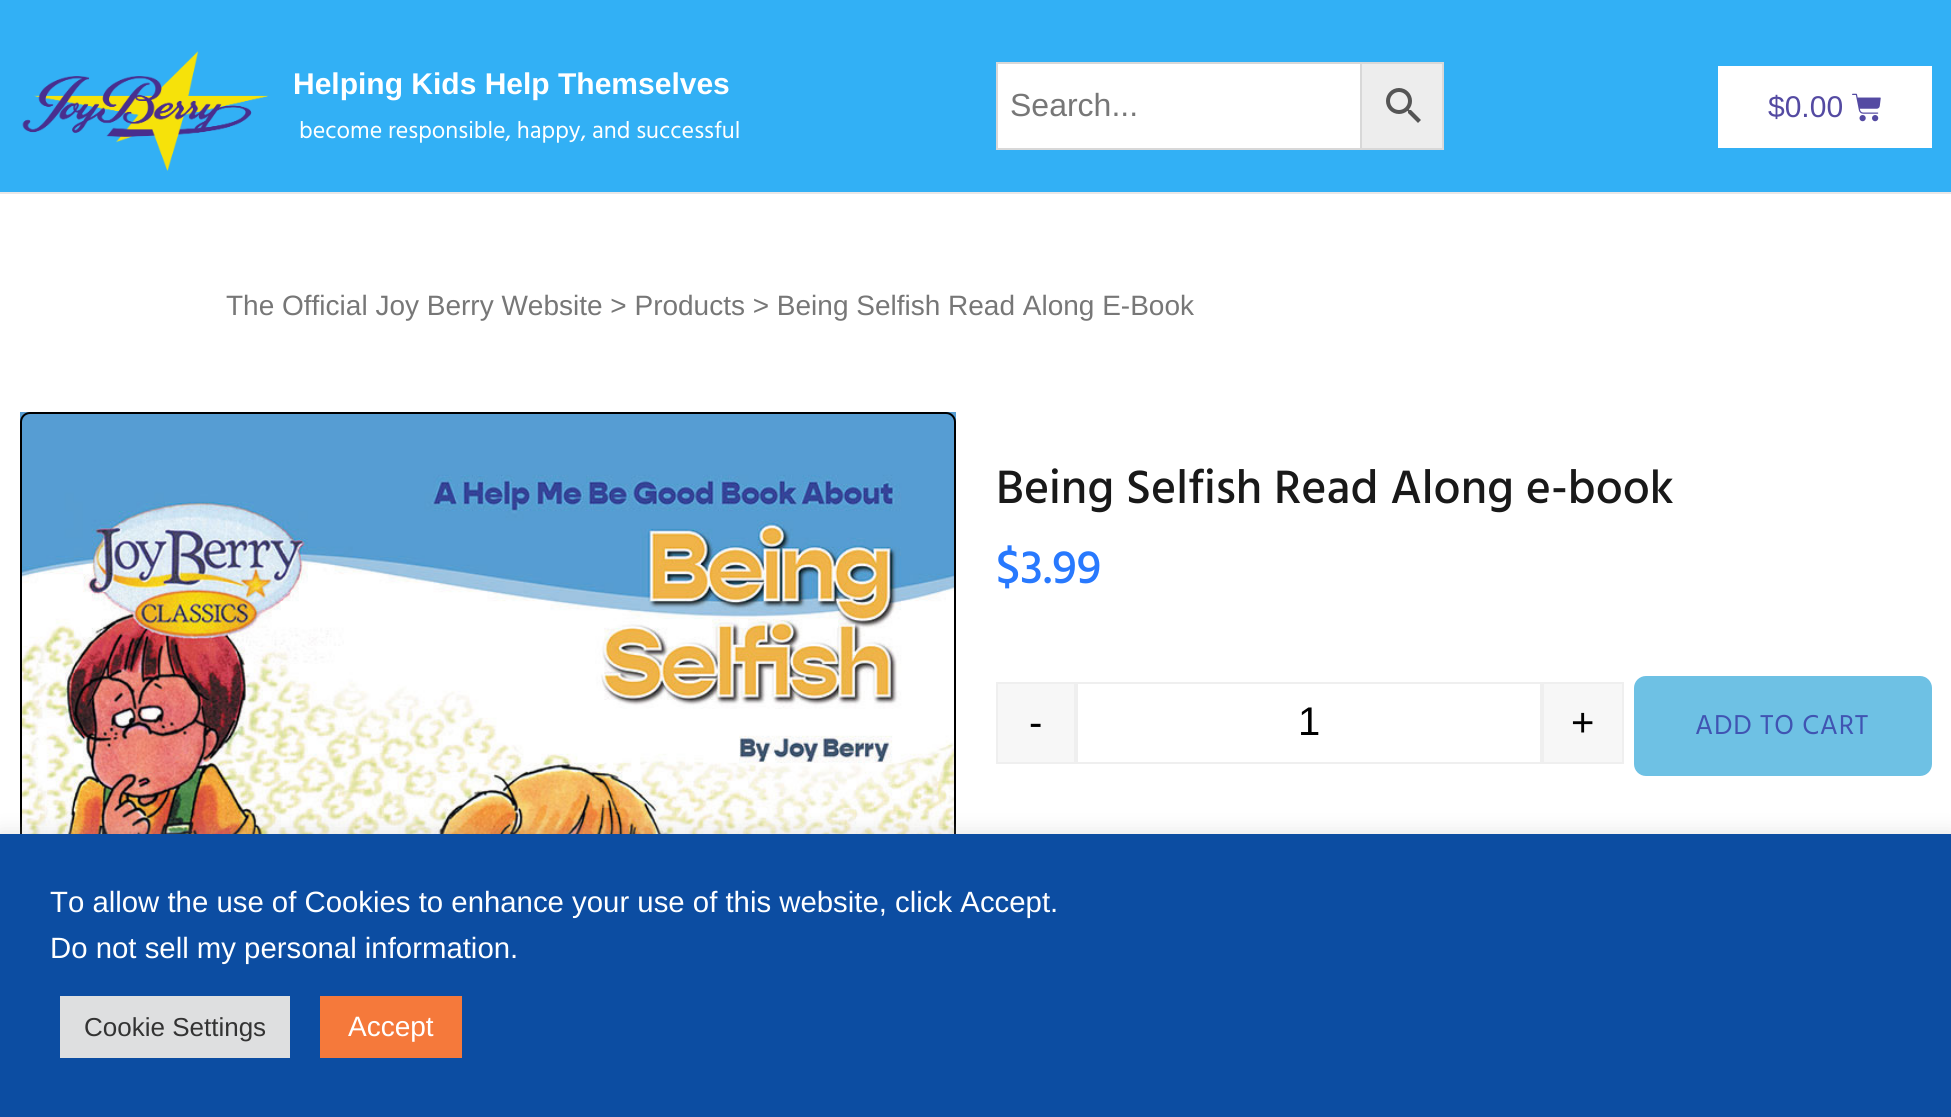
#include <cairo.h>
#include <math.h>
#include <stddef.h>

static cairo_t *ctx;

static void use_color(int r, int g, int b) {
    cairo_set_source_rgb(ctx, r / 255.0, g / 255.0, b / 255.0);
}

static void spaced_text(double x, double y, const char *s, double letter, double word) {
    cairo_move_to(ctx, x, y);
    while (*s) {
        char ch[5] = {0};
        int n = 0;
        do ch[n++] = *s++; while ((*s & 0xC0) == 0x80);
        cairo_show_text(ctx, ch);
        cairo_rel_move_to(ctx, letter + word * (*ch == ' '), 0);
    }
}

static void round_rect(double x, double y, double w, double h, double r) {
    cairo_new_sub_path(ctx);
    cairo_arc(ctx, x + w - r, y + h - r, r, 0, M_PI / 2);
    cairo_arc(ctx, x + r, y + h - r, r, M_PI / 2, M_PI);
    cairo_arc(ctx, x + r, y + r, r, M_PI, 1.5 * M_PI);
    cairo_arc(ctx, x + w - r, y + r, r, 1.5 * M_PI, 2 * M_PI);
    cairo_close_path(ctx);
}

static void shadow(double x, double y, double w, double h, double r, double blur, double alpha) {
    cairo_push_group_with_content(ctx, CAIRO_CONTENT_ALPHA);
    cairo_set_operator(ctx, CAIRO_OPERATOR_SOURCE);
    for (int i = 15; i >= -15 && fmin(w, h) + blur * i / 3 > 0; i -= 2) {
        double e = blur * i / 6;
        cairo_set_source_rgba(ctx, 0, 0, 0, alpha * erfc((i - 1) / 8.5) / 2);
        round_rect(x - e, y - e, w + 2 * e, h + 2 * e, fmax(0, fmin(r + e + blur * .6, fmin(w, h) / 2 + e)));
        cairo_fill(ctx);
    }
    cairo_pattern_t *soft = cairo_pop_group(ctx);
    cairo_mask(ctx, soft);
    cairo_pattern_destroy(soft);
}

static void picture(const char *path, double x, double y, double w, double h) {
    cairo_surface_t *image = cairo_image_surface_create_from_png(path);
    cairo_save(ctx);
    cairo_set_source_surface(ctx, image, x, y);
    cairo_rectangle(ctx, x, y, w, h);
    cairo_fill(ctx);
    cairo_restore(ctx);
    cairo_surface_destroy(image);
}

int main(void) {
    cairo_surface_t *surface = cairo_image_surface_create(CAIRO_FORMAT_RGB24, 1951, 1117);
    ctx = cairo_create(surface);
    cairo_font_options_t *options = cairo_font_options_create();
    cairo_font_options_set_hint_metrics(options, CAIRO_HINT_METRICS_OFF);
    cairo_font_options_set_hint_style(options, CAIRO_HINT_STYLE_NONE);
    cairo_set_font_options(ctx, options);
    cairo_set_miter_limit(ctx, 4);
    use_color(255, 255, 255);
    cairo_paint(ctx);
    use_color(50, 176, 245);
    cairo_rectangle(ctx, 0, 0, 1951, 192);
    cairo_fill(ctx);
    picture("img1.png", 22, 51, 247, 120);
    cairo_select_font_face(ctx, "Liberation Sans", CAIRO_FONT_SLANT_NORMAL, CAIRO_FONT_WEIGHT_BOLD);
    cairo_set_font_size(ctx, 30);
    use_color(255, 255, 255);
    cairo_move_to(ctx, 293, 94);
    cairo_show_text(ctx, "Helping Kids Help Themselves");
    cairo_select_font_face(ctx, "Hind", CAIRO_FONT_SLANT_NORMAL, CAIRO_FONT_WEIGHT_NORMAL);
    cairo_set_font_size(ctx, 24);
    cairo_move_to(ctx, 299, 138);
    cairo_show_text(ctx, "become responsible, happy, and successful");
    use_color(237, 237, 237);
    cairo_rectangle(ctx, 1361, 63, 82, 86);
    cairo_fill_preserve(ctx);
    use_color(216, 216, 216);
    cairo_stroke(ctx);
    use_color(255, 255, 255);
    cairo_rectangle(ctx, 997, 63, 364, 86);
    cairo_fill_preserve(ctx);
    use_color(216, 216, 216);
    cairo_stroke(ctx);
    cairo_select_font_face(ctx, "Liberation Sans", CAIRO_FONT_SLANT_NORMAL, CAIRO_FONT_WEIGHT_NORMAL);
    cairo_set_font_size(ctx, 32);
    use_color(119, 119, 119);
    cairo_move_to(ctx, 1010, 116);
    cairo_show_text(ctx, "Search...");
    picture("img2.png", 1386, 88, 35, 35);
    use_color(255, 255, 255);
    cairo_rectangle(ctx, 1718, 66, 214, 82);
    cairo_fill(ctx);
    cairo_set_font_size(ctx, 30);
    use_color(84, 74, 162);
    cairo_move_to(ctx, 1768, 117);
    cairo_show_text(ctx, "$0.00");
    picture("img3.png", 1852, 93, 29, 29);
    use_color(233, 231, 231);
    cairo_rectangle(ctx, 0, 192, 1951, 2);
    cairo_fill(ctx);
    cairo_set_font_size(ctx, 28);
    use_color(119, 119, 119);
    cairo_move_to(ctx, 226, 315);
    cairo_show_text(ctx, "The Official Joy Berry Website > Products > Being Selfish Read Along E-Book");
    picture("img4.png", 20, 412, 936, 422);
    cairo_select_font_face(ctx, "Hind Medium", CAIRO_FONT_SLANT_NORMAL, CAIRO_FONT_WEIGHT_NORMAL);
    cairo_set_font_size(ctx, 48);
    use_color(25, 25, 25);
    cairo_move_to(ctx, 996, 503);
    cairo_show_text(ctx, "Being Selfish Read Along e-book");
    use_color(40, 121, 254);
    cairo_move_to(ctx, 996, 583);
    cairo_show_text(ctx, "$3.99");
    use_color(247, 247, 247);
    cairo_rectangle(ctx, 997, 683, 78, 80);
    cairo_fill_preserve(ctx);
    use_color(239, 239, 239);
    cairo_stroke(ctx);
    cairo_select_font_face(ctx, "Liberation Sans", CAIRO_FONT_SLANT_NORMAL, CAIRO_FONT_WEIGHT_NORMAL);
    cairo_set_font_size(ctx, 40);
    use_color(0, 0, 0);
    cairo_move_to(ctx, 1029, 736);
    cairo_show_text(ctx, "-");
    cairo_rectangle(ctx, 1077, 683, 464, 80);
    use_color(239, 239, 239);
    cairo_stroke(ctx);
    use_color(0, 0, 0);
    cairo_move_to(ctx, 1298, 735);
    cairo_show_text(ctx, "1");
    use_color(247, 247, 247);
    cairo_rectangle(ctx, 1543, 683, 80, 80);
    cairo_fill_preserve(ctx);
    use_color(239, 239, 239);
    cairo_stroke(ctx);
    use_color(0, 0, 0);
    cairo_move_to(ctx, 1571, 736);
    cairo_show_text(ctx, "+");
    use_color(110, 193, 228);
    round_rect(1634, 676, 298, 100, 12);
    cairo_fill(ctx);
    cairo_select_font_face(ctx, "Hind", CAIRO_FONT_SLANT_NORMAL, CAIRO_FONT_WEIGHT_NORMAL);
    cairo_set_font_size(ctx, 28);
    use_color(64, 84, 178);
    spaced_text(1695, 734, "ADD TO CART", 0.75, 0);
    round_rect(21, 413, 934, 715, 9);
    use_color(0, 0, 0);
    cairo_stroke(ctx);
    use_color(172, 171, 171);
    shadow(0, 832, 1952, 284, 0, 10, 0.3);
    use_color(12, 77, 162);
    cairo_rectangle(ctx, 0, 834, 1951, 283);
    cairo_fill(ctx);
    cairo_select_font_face(ctx, "Liberation Sans", CAIRO_FONT_SLANT_NORMAL, CAIRO_FONT_WEIGHT_NORMAL);
    cairo_set_font_size(ctx, 29.35);
    use_color(255, 255, 255);
    cairo_move_to(ctx, 50, 912);
    cairo_show_text(ctx, "To allow the use of Cookies to enhance your use of this website, click Accept.");
    cairo_move_to(ctx, 50, 958);
    cairo_show_text(ctx, "Do not sell my personal information.");
    use_color(222, 223, 224);
    cairo_rectangle(ctx, 60, 996, 230, 62);
    cairo_fill(ctx);
    cairo_set_font_size(ctx, 26);
    use_color(51, 51, 51);
    cairo_move_to(ctx, 84, 1036);
    cairo_show_text(ctx, "Cookie Settings");
    use_color(245, 121, 59);
    cairo_rectangle(ctx, 320, 996, 142, 62);
    cairo_fill(ctx);
    cairo_set_font_size(ctx, 28);
    use_color(255, 255, 255);
    cairo_move_to(ctx, 348, 1036);
    cairo_show_text(ctx, "Accept");
    cairo_surface_write_to_png(surface, "result.png");
    cairo_font_options_destroy(options);
    cairo_destroy(ctx);
    cairo_surface_destroy(surface);
    return 0;
}
